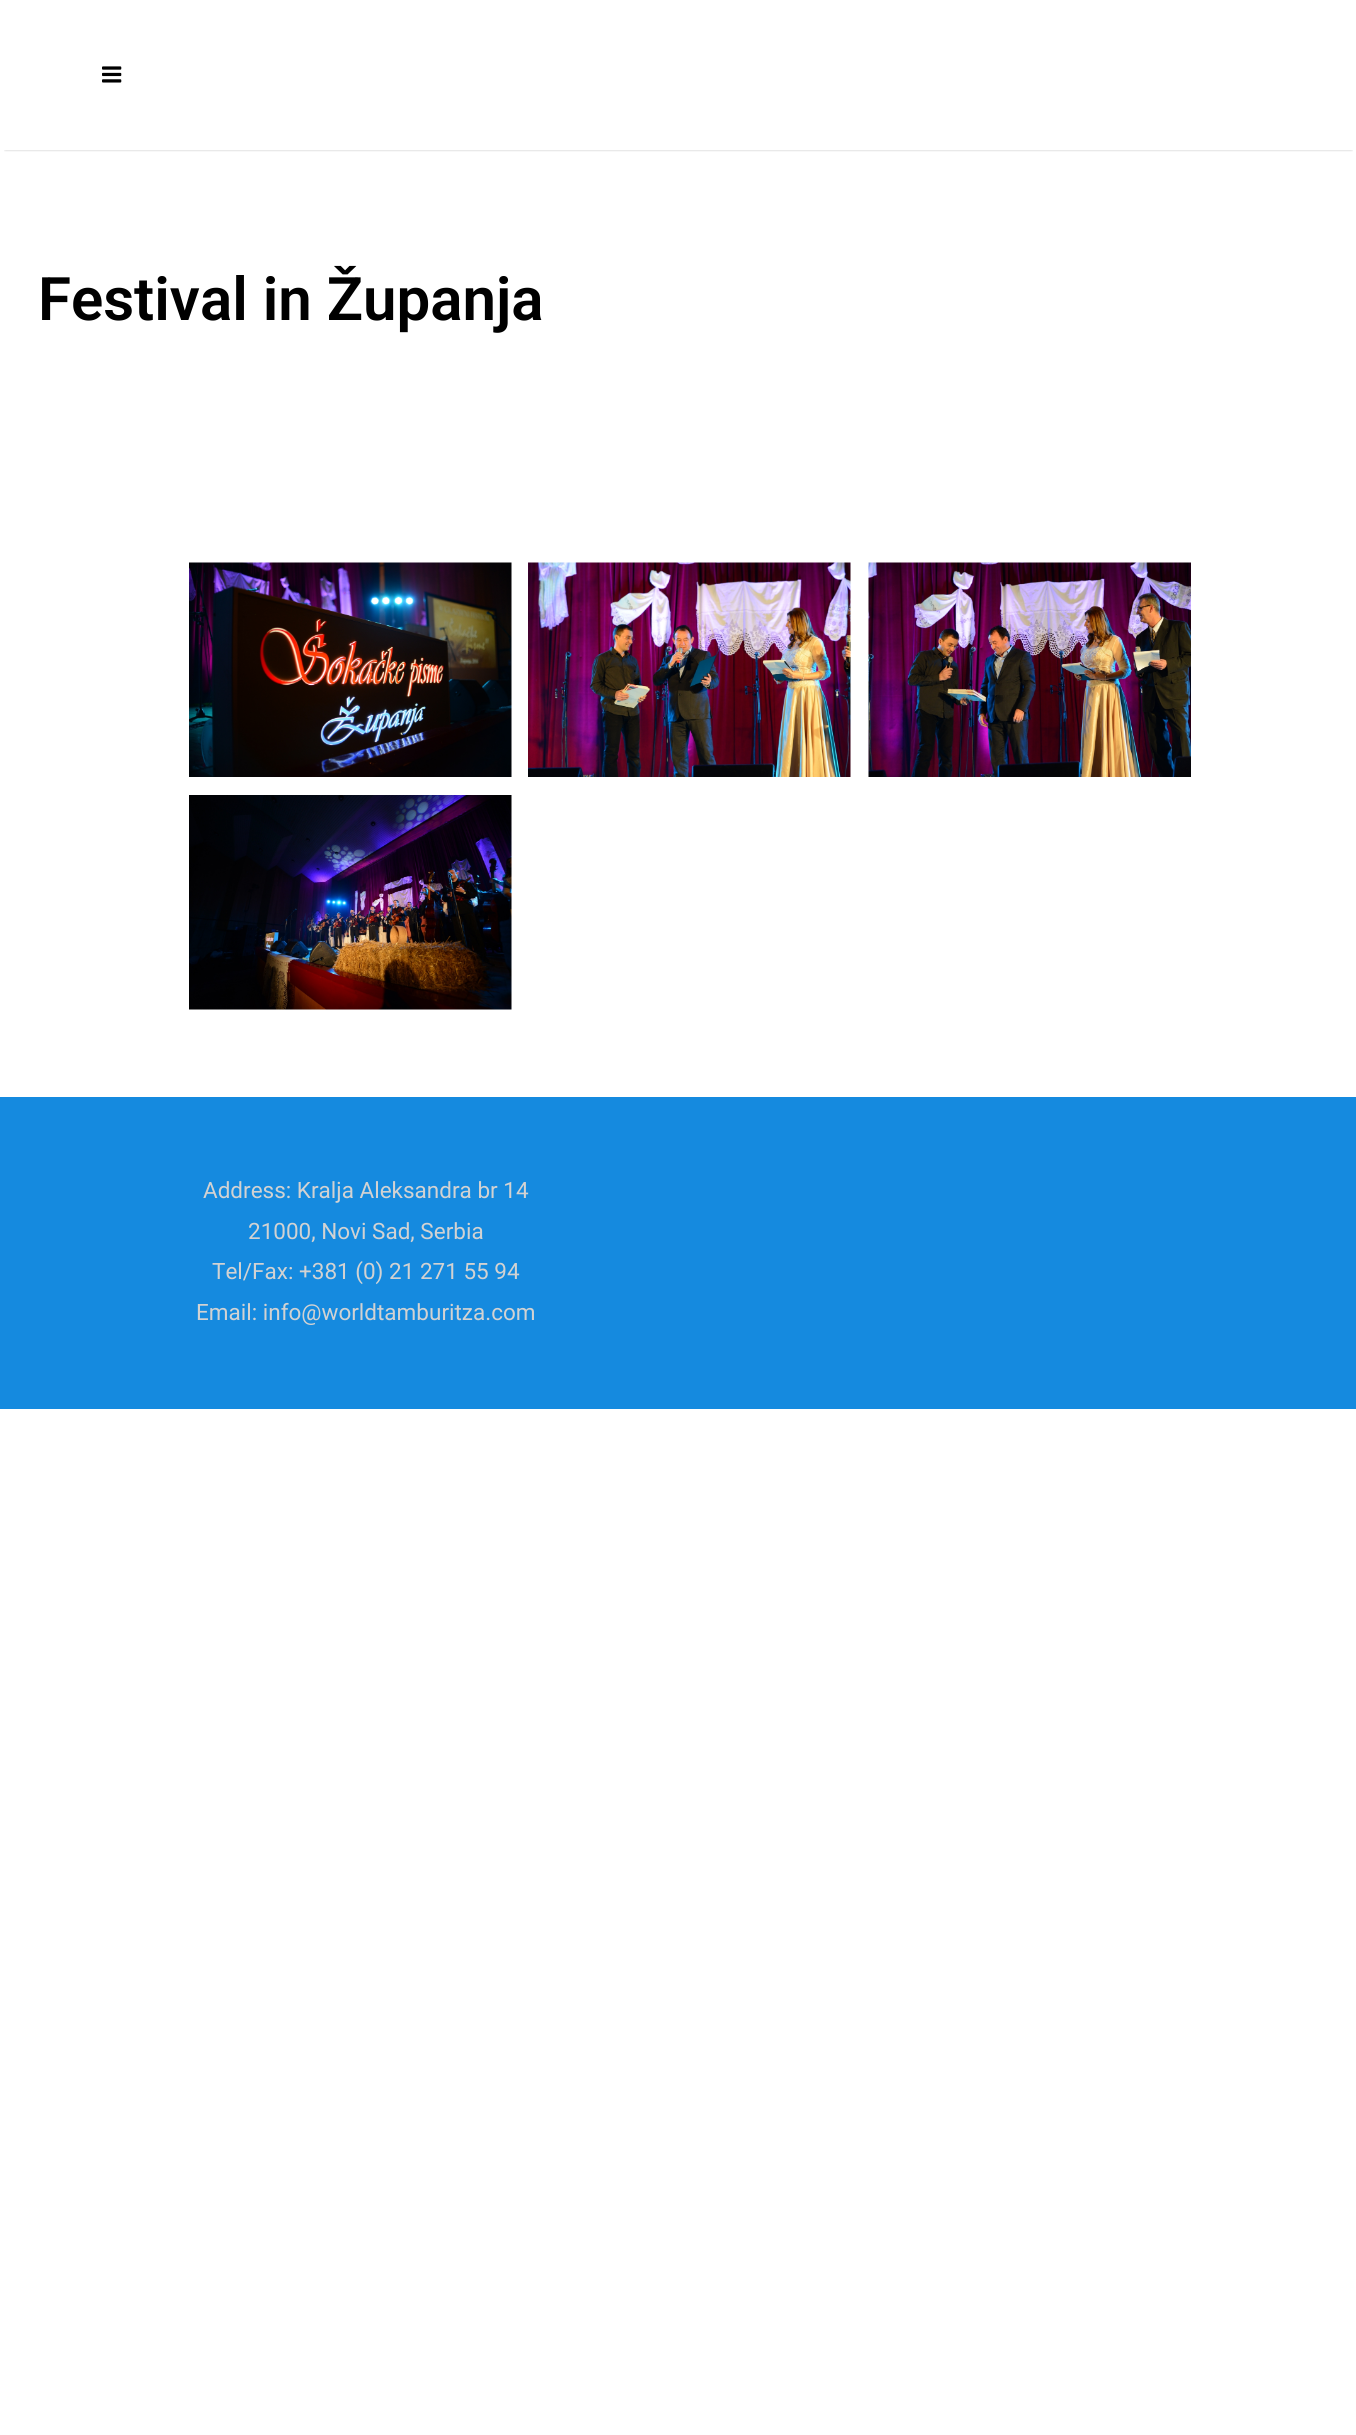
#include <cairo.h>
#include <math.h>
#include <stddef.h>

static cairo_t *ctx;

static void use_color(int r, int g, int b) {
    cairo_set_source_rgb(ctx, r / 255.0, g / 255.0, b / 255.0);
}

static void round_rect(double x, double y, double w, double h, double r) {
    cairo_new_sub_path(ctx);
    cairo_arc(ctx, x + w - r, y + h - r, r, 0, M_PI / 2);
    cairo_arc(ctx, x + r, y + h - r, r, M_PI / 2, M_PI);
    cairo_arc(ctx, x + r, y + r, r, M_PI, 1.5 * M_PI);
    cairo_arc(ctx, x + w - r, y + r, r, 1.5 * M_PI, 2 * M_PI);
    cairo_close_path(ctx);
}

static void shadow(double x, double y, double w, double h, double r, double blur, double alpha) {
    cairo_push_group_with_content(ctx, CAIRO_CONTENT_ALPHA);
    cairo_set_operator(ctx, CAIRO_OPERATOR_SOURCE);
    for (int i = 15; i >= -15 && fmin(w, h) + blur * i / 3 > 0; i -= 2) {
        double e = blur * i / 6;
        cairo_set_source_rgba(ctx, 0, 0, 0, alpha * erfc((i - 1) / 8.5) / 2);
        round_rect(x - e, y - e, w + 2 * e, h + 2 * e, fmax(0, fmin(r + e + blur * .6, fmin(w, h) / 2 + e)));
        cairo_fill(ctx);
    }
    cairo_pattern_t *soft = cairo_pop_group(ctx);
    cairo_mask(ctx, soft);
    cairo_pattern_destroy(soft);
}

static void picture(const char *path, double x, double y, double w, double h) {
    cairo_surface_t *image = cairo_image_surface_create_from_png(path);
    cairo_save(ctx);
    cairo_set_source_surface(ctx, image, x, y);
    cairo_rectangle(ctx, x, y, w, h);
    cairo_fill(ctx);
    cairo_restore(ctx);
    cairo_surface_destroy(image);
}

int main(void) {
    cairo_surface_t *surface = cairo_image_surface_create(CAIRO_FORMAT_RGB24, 1356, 2435);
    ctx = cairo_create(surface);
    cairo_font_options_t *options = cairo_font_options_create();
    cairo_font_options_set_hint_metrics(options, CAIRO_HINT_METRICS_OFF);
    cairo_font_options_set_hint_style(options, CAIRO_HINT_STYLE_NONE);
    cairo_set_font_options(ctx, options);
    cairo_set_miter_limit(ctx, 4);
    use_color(255, 255, 255);
    cairo_paint(ctx);
    cairo_save(ctx);
    cairo_rectangle(ctx, 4, 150, 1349, 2);
    cairo_clip(ctx);
    use_color(0, 0, 0);
    shadow(5, 8, 1347, 141, 0, 1.5, 0.5);
    cairo_restore(ctx);
    picture("img1.png", 102, 66, 20, 17);
    cairo_select_font_face(ctx, "Roboto SemiBold", CAIRO_FONT_SLANT_NORMAL, CAIRO_FONT_WEIGHT_NORMAL);
    cairo_set_font_size(ctx, 60);
    use_color(0, 0, 0);
    cairo_move_to(ctx, 38, 320);
    cairo_show_text(ctx, "Festival in Županja");
    picture("img2.png", 189, 562, 323, 215);
    picture("img3.png", 528, 562, 323, 215);
    picture("img4.png", 868, 562, 323, 215);
    picture("img5.png", 189, 795, 323, 215);
    use_color(21, 138, 223);
    cairo_rectangle(ctx, 0, 1097, 1356, 312);
    cairo_fill(ctx);
    cairo_select_font_face(ctx, "Roboto", CAIRO_FONT_SLANT_NORMAL, CAIRO_FONT_WEIGHT_NORMAL);
    cairo_set_font_size(ctx, 22.5);
    use_color(210, 210, 210);
    cairo_move_to(ctx, 203, 1198);
    cairo_show_text(ctx, "Address: Kralja Aleksandra br 14");
    cairo_move_to(ctx, 248, 1239);
    cairo_show_text(ctx, "21000, Novi Sad, Serbia");
    cairo_move_to(ctx, 212, 1279);
    cairo_show_text(ctx, "Tel/Fax: +381 (0) 21 271 55 94");
    cairo_move_to(ctx, 196, 1320);
    cairo_show_text(ctx, "Email: info@worldtamburitza.com");
    cairo_surface_write_to_png(surface, "result.png");
    cairo_font_options_destroy(options);
    cairo_destroy(ctx);
    cairo_surface_destroy(surface);
    return 0;
}
